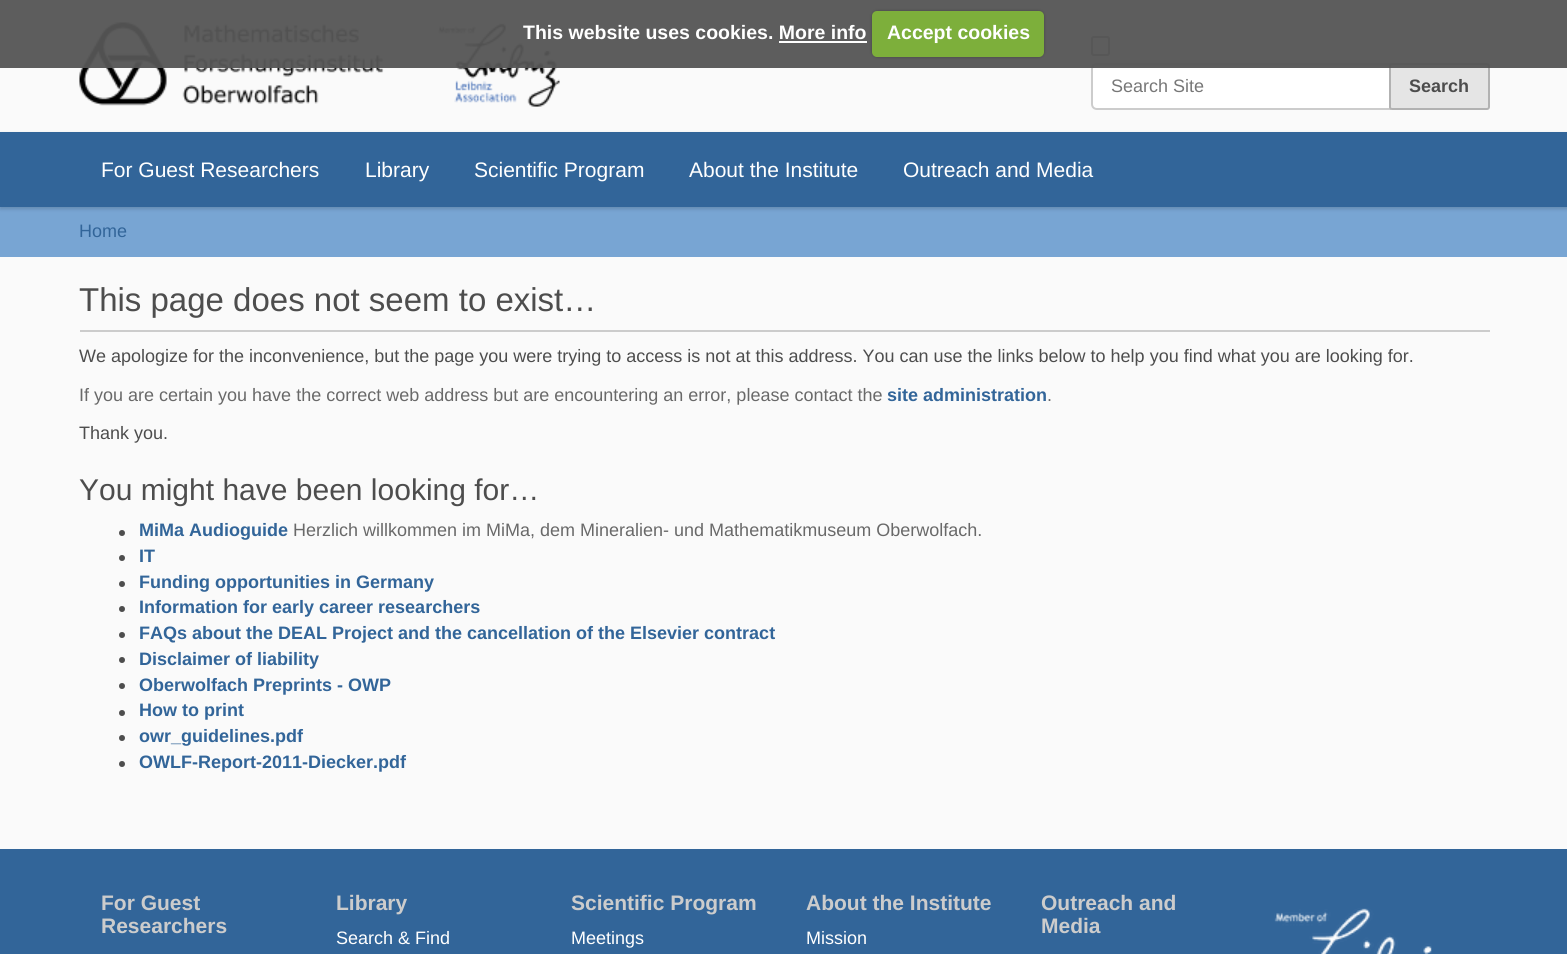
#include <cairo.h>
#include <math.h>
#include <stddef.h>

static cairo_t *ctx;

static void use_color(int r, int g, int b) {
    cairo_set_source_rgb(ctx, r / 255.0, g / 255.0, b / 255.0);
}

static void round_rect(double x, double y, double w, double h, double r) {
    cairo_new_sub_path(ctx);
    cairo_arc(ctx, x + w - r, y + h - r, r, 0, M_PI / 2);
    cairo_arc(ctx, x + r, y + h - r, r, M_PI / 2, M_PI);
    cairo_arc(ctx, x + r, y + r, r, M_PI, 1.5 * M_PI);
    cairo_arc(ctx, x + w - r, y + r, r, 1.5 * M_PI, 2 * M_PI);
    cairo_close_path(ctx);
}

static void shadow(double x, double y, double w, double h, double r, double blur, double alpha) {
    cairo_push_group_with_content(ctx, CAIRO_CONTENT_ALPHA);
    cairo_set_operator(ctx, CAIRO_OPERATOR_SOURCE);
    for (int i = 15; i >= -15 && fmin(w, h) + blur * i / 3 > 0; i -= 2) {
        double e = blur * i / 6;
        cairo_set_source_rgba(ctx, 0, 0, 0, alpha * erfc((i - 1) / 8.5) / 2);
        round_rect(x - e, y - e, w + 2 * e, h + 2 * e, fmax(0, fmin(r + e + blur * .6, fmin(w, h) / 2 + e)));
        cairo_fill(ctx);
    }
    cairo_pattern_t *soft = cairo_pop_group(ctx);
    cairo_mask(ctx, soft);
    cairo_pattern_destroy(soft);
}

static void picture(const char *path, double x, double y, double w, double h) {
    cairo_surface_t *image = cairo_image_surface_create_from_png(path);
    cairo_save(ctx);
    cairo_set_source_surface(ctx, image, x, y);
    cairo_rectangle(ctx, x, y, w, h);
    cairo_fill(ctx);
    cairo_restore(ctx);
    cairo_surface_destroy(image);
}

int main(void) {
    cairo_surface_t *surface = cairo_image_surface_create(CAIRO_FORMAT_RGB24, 1567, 954);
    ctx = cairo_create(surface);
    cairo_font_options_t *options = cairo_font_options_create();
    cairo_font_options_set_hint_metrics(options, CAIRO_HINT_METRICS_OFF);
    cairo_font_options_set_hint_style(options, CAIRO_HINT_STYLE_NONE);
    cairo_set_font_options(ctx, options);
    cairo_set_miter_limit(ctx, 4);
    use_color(250, 250, 250);
    cairo_paint(ctx);
    picture("img1.png", 79, 22, 481, 85);
    use_color(255, 255, 255);
    round_rect(1092, 37, 17, 18, 2);
    cairo_fill_preserve(ctx);
    use_color(118, 118, 118);
    cairo_stroke(ctx);
    use_color(255, 255, 255);
    cairo_new_path(ctx);
    cairo_move_to(ctx, 1097, 63);
    cairo_line_to(ctx, 1391, 63);
    cairo_line_to(ctx, 1391, 110);
    cairo_line_to(ctx, 1097, 110);
    cairo_curve_to(ctx, 1093.5, 110, 1091, 107.5, 1091, 104);
    cairo_line_to(ctx, 1091, 69);
    cairo_curve_to(ctx, 1091, 65.5, 1093.5, 63, 1097, 63);
    cairo_close_path(ctx);
    cairo_fill(ctx);
    use_color(236, 236, 236);
    cairo_new_path(ctx);
    cairo_move_to(ctx, 1096, 66);
    cairo_line_to(ctx, 1389, 66);
    cairo_line_to(ctx, 1389, 65);
    cairo_line_to(ctx, 1097, 65);
    cairo_curve_to(ctx, 1094, 65, 1092, 67, 1092, 70);
    cairo_curve_to(ctx, 1092, 68, 1094, 66, 1096, 66);
    cairo_close_path(ctx);
    cairo_fill(ctx);
    cairo_new_path(ctx);
    cairo_move_to(ctx, 1097, 64);
    cairo_line_to(ctx, 1390, 64);
    cairo_line_to(ctx, 1390, 109);
    cairo_line_to(ctx, 1097, 109);
    cairo_curve_to(ctx, 1094, 109, 1092, 107, 1092, 104);
    cairo_line_to(ctx, 1092, 69);
    cairo_curve_to(ctx, 1092, 66, 1094, 64, 1097, 64);
    cairo_close_path(ctx);
    use_color(204, 204, 204);
    cairo_stroke(ctx);
    use_color(229, 229, 229);
    round_rect(1390, 64, 99, 45, 2);
    cairo_fill_preserve(ctx);
    use_color(178, 178, 178);
    cairo_stroke(ctx);
    cairo_set_source_rgba(ctx, 0.337, 0.337, 0.337, 0.95);
    cairo_rectangle(ctx, 0, 0, 1567, 68);
    cairo_fill(ctx);
    cairo_select_font_face(ctx, "Liberation Sans", CAIRO_FONT_SLANT_NORMAL, CAIRO_FONT_WEIGHT_BOLD);
    cairo_set_font_size(ctx, 19.5);
    use_color(255, 255, 255);
    cairo_move_to(ctx, 523, 39);
    cairo_show_text(ctx, "This website uses cookies. More info");
    cairo_rectangle(ctx, 779, 41, 88, 2);
    cairo_fill(ctx);
    use_color(0, 0, 0);
    shadow(872, 11, 172, 46, 5, 1.5, 0.25);
    use_color(125, 175, 59);
    round_rect(872, 11, 172, 46, 5);
    cairo_fill(ctx);
    use_color(255, 255, 255);
    cairo_move_to(ctx, 887, 39);
    cairo_show_text(ctx, "Accept cookies");
    cairo_select_font_face(ctx, "Liberation Sans", CAIRO_FONT_SLANT_NORMAL, CAIRO_FONT_WEIGHT_NORMAL);
    cairo_set_font_size(ctx, 18);
    use_color(119, 119, 119);
    cairo_move_to(ctx, 1111, 92);
    cairo_show_text(ctx, "Search Site");
    cairo_select_font_face(ctx, "Liberation Sans", CAIRO_FONT_SLANT_NORMAL, CAIRO_FONT_WEIGHT_BOLD);
    use_color(77, 77, 77);
    cairo_move_to(ctx, 1409, 92);
    cairo_show_text(ctx, "Search");
    use_color(120, 165, 211);
    cairo_rectangle(ctx, 0, 207, 1567, 50);
    cairo_fill(ctx);
    use_color(0, 0, 0);
    shadow(0, 134, 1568, 75, 0, 2, 0.17);
    use_color(50, 101, 153);
    cairo_rectangle(ctx, 0, 132, 1567, 75);
    cairo_fill(ctx);
    cairo_select_font_face(ctx, "Liberation Sans", CAIRO_FONT_SLANT_NORMAL, CAIRO_FONT_WEIGHT_NORMAL);
    cairo_set_font_size(ctx, 21);
    use_color(255, 255, 255);
    cairo_move_to(ctx, 101, 177);
    cairo_show_text(ctx, "For Guest Researchers");
    cairo_move_to(ctx, 365, 177);
    cairo_show_text(ctx, "Library");
    cairo_move_to(ctx, 474, 177);
    cairo_show_text(ctx, "Scientific Program");
    cairo_move_to(ctx, 689, 177);
    cairo_show_text(ctx, "About the Institute");
    cairo_move_to(ctx, 903, 177);
    cairo_show_text(ctx, "Outreach and Media");
    cairo_set_font_size(ctx, 18);
    use_color(50, 101, 153);
    cairo_move_to(ctx, 79, 237);
    cairo_show_text(ctx, "Home");
    use_color(204, 204, 204);
    cairo_rectangle(ctx, 80, 330, 1410, 2);
    cairo_fill(ctx);
    cairo_set_font_size(ctx, 33);
    use_color(77, 77, 77);
    cairo_move_to(ctx, 79, 311);
    cairo_show_text(ctx, "This page does not seem to exist…");
    cairo_set_font_size(ctx, 18);
    cairo_move_to(ctx, 79, 362);
    cairo_show_text(ctx, "We apologize for the inconvenience, but the page you were trying to access is not at this address. You can use the links below to help you find what you are looking for.");
    use_color(105, 105, 105);
    cairo_move_to(ctx, 79, 401);
    cairo_show_text(ctx, "If you are certain you have the correct web address but are encountering an error, please contact the");
    cairo_select_font_face(ctx, "Liberation Sans", CAIRO_FONT_SLANT_NORMAL, CAIRO_FONT_WEIGHT_BOLD);
    use_color(50, 101, 153);
    cairo_move_to(ctx, 887, 401);
    cairo_show_text(ctx, "site administration");
    cairo_select_font_face(ctx, "Liberation Sans", CAIRO_FONT_SLANT_NORMAL, CAIRO_FONT_WEIGHT_NORMAL);
    use_color(105, 105, 105);
    cairo_move_to(ctx, 1047, 401);
    cairo_show_text(ctx, ".");
    use_color(77, 77, 77);
    cairo_move_to(ctx, 79, 439);
    cairo_show_text(ctx, "Thank you.");
    cairo_set_font_size(ctx, 30);
    cairo_move_to(ctx, 79, 500);
    cairo_show_text(ctx, "You might have been looking for…");
    cairo_new_path(ctx);
    cairo_arc(ctx, 122, 533, 3, 0, 2 * M_PI);
    cairo_fill(ctx);
    cairo_select_font_face(ctx, "Liberation Sans", CAIRO_FONT_SLANT_NORMAL, CAIRO_FONT_WEIGHT_BOLD);
    cairo_set_font_size(ctx, 18);
    use_color(50, 101, 153);
    cairo_move_to(ctx, 139, 536);
    cairo_show_text(ctx, "MiMa Audioguide");
    cairo_select_font_face(ctx, "Liberation Sans", CAIRO_FONT_SLANT_NORMAL, CAIRO_FONT_WEIGHT_NORMAL);
    use_color(105, 105, 105);
    cairo_move_to(ctx, 293, 536);
    cairo_show_text(ctx, "Herzlich willkommen im MiMa, dem Mineralien- und Mathematikmuseum Oberwolfach.");
    use_color(77, 77, 77);
    cairo_new_path(ctx);
    cairo_arc(ctx, 122, 558, 3, 0, 2 * M_PI);
    cairo_fill(ctx);
    cairo_select_font_face(ctx, "Liberation Sans", CAIRO_FONT_SLANT_NORMAL, CAIRO_FONT_WEIGHT_BOLD);
    use_color(50, 101, 153);
    cairo_move_to(ctx, 139, 562);
    cairo_show_text(ctx, "IT");
    use_color(77, 77, 77);
    cairo_new_path(ctx);
    cairo_arc(ctx, 122, 584, 3, 0, 2 * M_PI);
    cairo_fill(ctx);
    use_color(50, 101, 153);
    cairo_move_to(ctx, 139, 588);
    cairo_show_text(ctx, "Funding opportunities in Germany");
    use_color(77, 77, 77);
    cairo_new_path(ctx);
    cairo_arc(ctx, 122, 609, 3, 0, 2 * M_PI);
    cairo_fill(ctx);
    use_color(50, 101, 153);
    cairo_move_to(ctx, 139, 613);
    cairo_show_text(ctx, "Information for early career researchers");
    use_color(77, 77, 77);
    cairo_new_path(ctx);
    cairo_arc(ctx, 122, 635, 3, 0, 2 * M_PI);
    cairo_fill(ctx);
    use_color(50, 101, 153);
    cairo_move_to(ctx, 139, 639);
    cairo_show_text(ctx, "FAQs about the DEAL Project and the cancellation of the Elsevier contract");
    use_color(77, 77, 77);
    cairo_new_path(ctx);
    cairo_arc(ctx, 122, 660, 3, 0, 2 * M_PI);
    cairo_fill(ctx);
    use_color(50, 101, 153);
    cairo_move_to(ctx, 139, 665);
    cairo_show_text(ctx, "Disclaimer of liability");
    use_color(77, 77, 77);
    cairo_new_path(ctx);
    cairo_arc(ctx, 122, 686, 3, 0, 2 * M_PI);
    cairo_fill(ctx);
    use_color(50, 101, 153);
    cairo_move_to(ctx, 139, 691);
    cairo_show_text(ctx, "Oberwolfach Preprints - OWP");
    use_color(77, 77, 77);
    cairo_new_path(ctx);
    cairo_arc(ctx, 122, 713, 3, 0, 2 * M_PI);
    cairo_fill(ctx);
    use_color(50, 101, 153);
    cairo_move_to(ctx, 139, 716);
    cairo_show_text(ctx, "How to print");
    use_color(77, 77, 77);
    cairo_new_path(ctx);
    cairo_arc(ctx, 122, 738, 3, 0, 2 * M_PI);
    cairo_fill(ctx);
    use_color(50, 101, 153);
    cairo_move_to(ctx, 139, 742);
    cairo_show_text(ctx, "owr_guidelines.pdf");
    use_color(77, 77, 77);
    cairo_new_path(ctx);
    cairo_arc(ctx, 122, 764, 3, 0, 2 * M_PI);
    cairo_fill(ctx);
    use_color(50, 101, 153);
    cairo_move_to(ctx, 139, 768);
    cairo_show_text(ctx, "OWLF-Report-2011-Diecker.pdf");
    cairo_rectangle(ctx, 0, 849, 1567, 105);
    cairo_fill(ctx);
    cairo_set_font_size(ctx, 21);
    use_color(204, 204, 204);
    cairo_move_to(ctx, 101, 910);
    cairo_show_text(ctx, "For Guest");
    cairo_move_to(ctx, 101, 933);
    cairo_show_text(ctx, "Researchers");
    cairo_move_to(ctx, 336, 910);
    cairo_show_text(ctx, "Library");
    cairo_select_font_face(ctx, "Liberation Sans", CAIRO_FONT_SLANT_NORMAL, CAIRO_FONT_WEIGHT_NORMAL);
    cairo_set_font_size(ctx, 18);
    use_color(255, 255, 255);
    cairo_move_to(ctx, 336, 944);
    cairo_show_text(ctx, "Search & Find");
    cairo_select_font_face(ctx, "Liberation Sans", CAIRO_FONT_SLANT_NORMAL, CAIRO_FONT_WEIGHT_BOLD);
    cairo_set_font_size(ctx, 21);
    use_color(204, 204, 204);
    cairo_move_to(ctx, 571, 910);
    cairo_show_text(ctx, "Scientific Program");
    cairo_select_font_face(ctx, "Liberation Sans", CAIRO_FONT_SLANT_NORMAL, CAIRO_FONT_WEIGHT_NORMAL);
    cairo_set_font_size(ctx, 18);
    use_color(255, 255, 255);
    cairo_move_to(ctx, 571, 944);
    cairo_show_text(ctx, "Meetings");
    cairo_select_font_face(ctx, "Liberation Sans", CAIRO_FONT_SLANT_NORMAL, CAIRO_FONT_WEIGHT_BOLD);
    cairo_set_font_size(ctx, 21);
    use_color(204, 204, 204);
    cairo_move_to(ctx, 806, 910);
    cairo_show_text(ctx, "About the Institute");
    cairo_select_font_face(ctx, "Liberation Sans", CAIRO_FONT_SLANT_NORMAL, CAIRO_FONT_WEIGHT_NORMAL);
    cairo_set_font_size(ctx, 18);
    use_color(255, 255, 255);
    cairo_move_to(ctx, 806, 944);
    cairo_show_text(ctx, "Mission");
    cairo_select_font_face(ctx, "Liberation Sans", CAIRO_FONT_SLANT_NORMAL, CAIRO_FONT_WEIGHT_BOLD);
    cairo_set_font_size(ctx, 21);
    use_color(204, 204, 204);
    cairo_move_to(ctx, 1041, 910);
    cairo_show_text(ctx, "Outreach and");
    cairo_move_to(ctx, 1041, 933);
    cairo_show_text(ctx, "Media");
    picture("img2.png", 1274, 908, 158, 46);
    cairo_surface_write_to_png(surface, "result.png");
    cairo_font_options_destroy(options);
    cairo_destroy(ctx);
    cairo_surface_destroy(surface);
    return 0;
}
